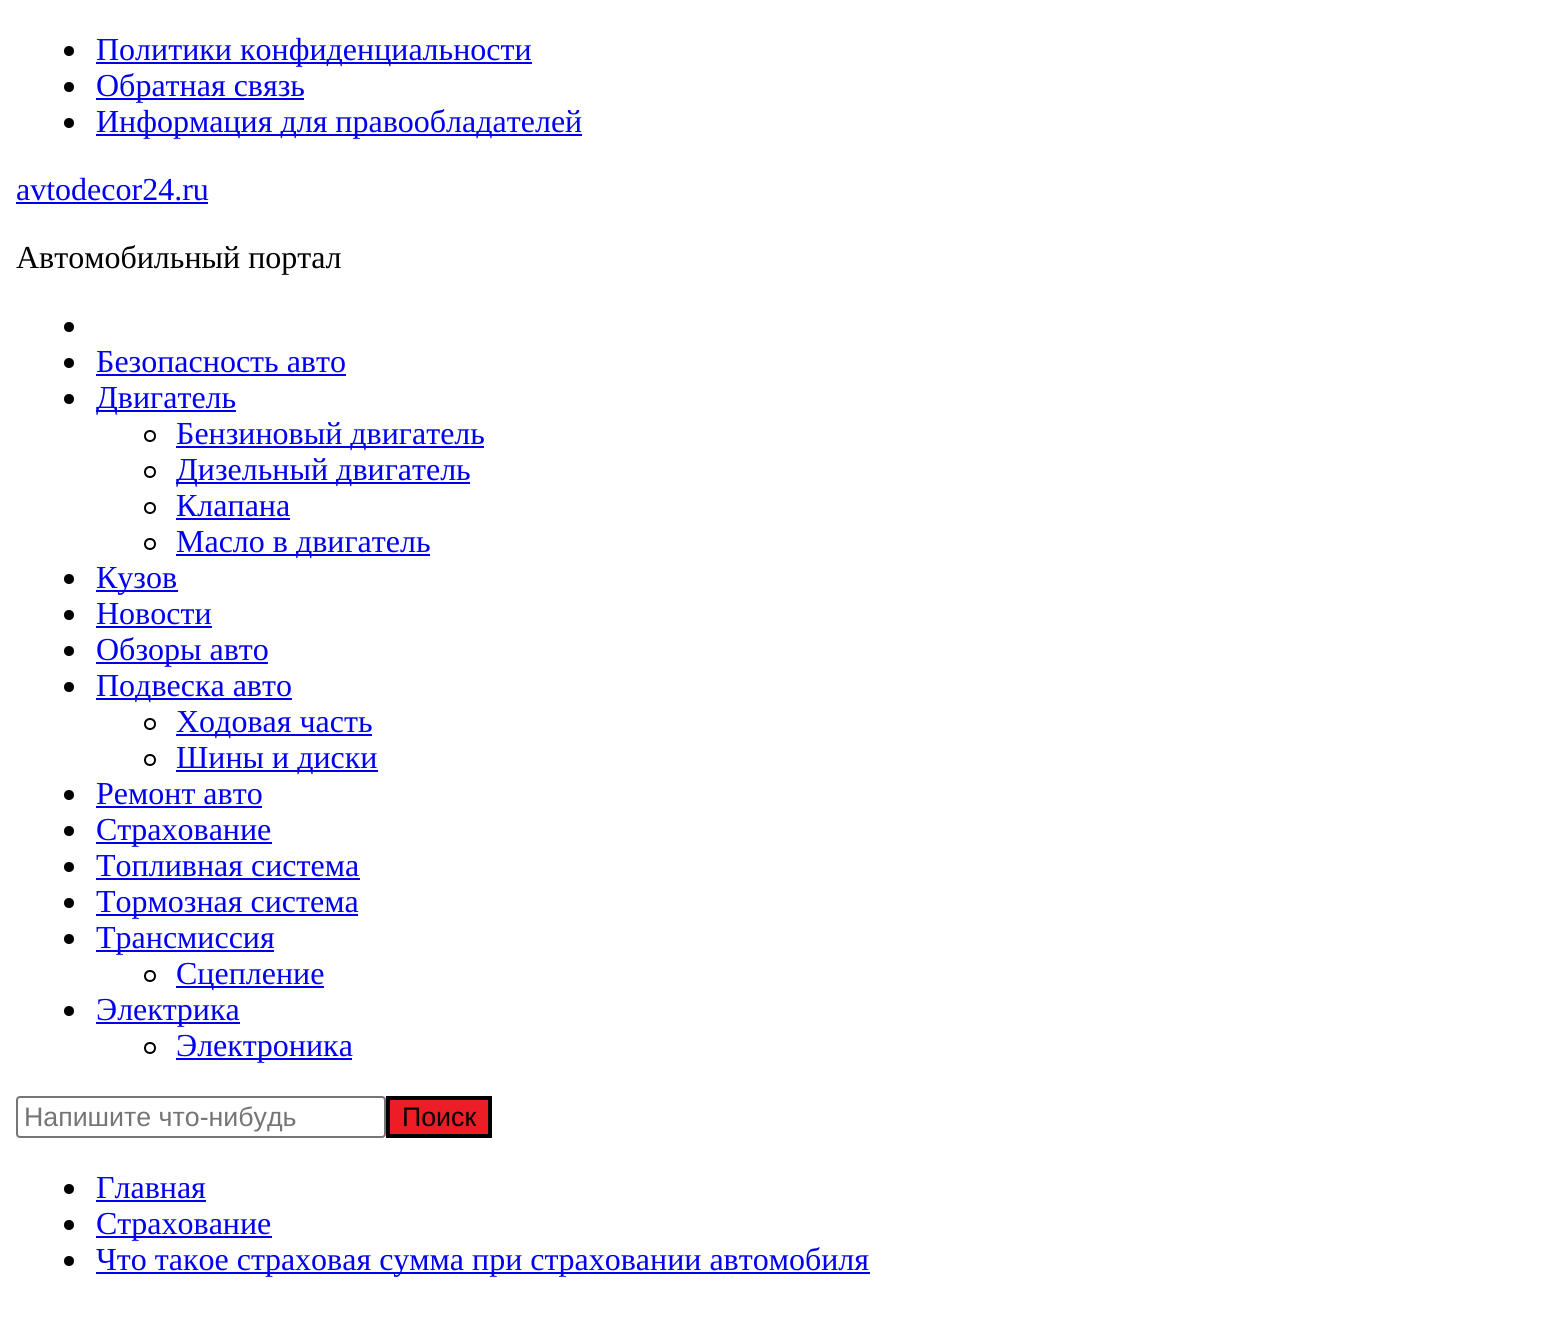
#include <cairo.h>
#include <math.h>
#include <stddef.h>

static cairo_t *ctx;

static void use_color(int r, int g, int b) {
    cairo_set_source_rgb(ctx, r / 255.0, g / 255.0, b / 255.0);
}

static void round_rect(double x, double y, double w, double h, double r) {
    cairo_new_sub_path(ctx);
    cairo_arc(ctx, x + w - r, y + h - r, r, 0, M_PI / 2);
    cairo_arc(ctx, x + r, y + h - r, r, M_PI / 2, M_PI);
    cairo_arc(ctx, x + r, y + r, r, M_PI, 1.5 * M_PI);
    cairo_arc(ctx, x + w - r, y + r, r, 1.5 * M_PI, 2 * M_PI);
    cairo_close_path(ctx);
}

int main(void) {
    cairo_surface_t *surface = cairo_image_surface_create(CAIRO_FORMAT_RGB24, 1560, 1324);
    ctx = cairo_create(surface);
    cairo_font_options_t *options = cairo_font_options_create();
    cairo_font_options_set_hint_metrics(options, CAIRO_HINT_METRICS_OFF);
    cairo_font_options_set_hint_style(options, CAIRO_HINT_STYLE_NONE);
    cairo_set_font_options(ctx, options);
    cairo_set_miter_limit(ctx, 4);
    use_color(255, 255, 255);
    cairo_paint(ctx);
    use_color(0, 0, 0);
    cairo_arc(ctx, 69, 51, 5, 0, 2 * M_PI);
    cairo_fill(ctx);
    use_color(0, 0, 238);
    cairo_rectangle(ctx, 96, 62, 436, 2);
    cairo_fill(ctx);
    cairo_select_font_face(ctx, "Liberation Serif", CAIRO_FONT_SLANT_NORMAL, CAIRO_FONT_WEIGHT_NORMAL);
    cairo_set_font_size(ctx, 32);
    cairo_move_to(ctx, 96, 60);
    cairo_show_text(ctx, "Политики конфиденциальности");
    use_color(0, 0, 0);
    cairo_new_path(ctx);
    cairo_arc(ctx, 69, 87, 5, 0, 2 * M_PI);
    cairo_fill(ctx);
    use_color(0, 0, 238);
    cairo_rectangle(ctx, 96, 98, 208, 2);
    cairo_fill(ctx);
    cairo_move_to(ctx, 96, 96);
    cairo_show_text(ctx, "Обратная связь");
    use_color(0, 0, 0);
    cairo_new_path(ctx);
    cairo_arc(ctx, 69, 123, 5, 0, 2 * M_PI);
    cairo_fill(ctx);
    use_color(0, 0, 238);
    cairo_rectangle(ctx, 96, 134, 486, 2);
    cairo_fill(ctx);
    cairo_move_to(ctx, 96, 132);
    cairo_show_text(ctx, "Информация для правообладателей");
    cairo_move_to(ctx, 16, 200);
    cairo_show_text(ctx, "avtodecor24.ru");
    cairo_rectangle(ctx, 16, 202, 192, 2);
    cairo_fill(ctx);
    use_color(0, 0, 0);
    cairo_move_to(ctx, 16, 268);
    cairo_show_text(ctx, "Автомобильный портал");
    cairo_new_path(ctx);
    cairo_arc(ctx, 69, 327, 5, 0, 2 * M_PI);
    cairo_fill(ctx);
    cairo_arc(ctx, 69, 363, 5, 0, 2 * M_PI);
    cairo_fill(ctx);
    use_color(0, 0, 238);
    cairo_move_to(ctx, 96, 372);
    cairo_show_text(ctx, "Безопасность авто");
    cairo_rectangle(ctx, 96, 374, 250, 2);
    cairo_fill(ctx);
    use_color(0, 0, 0);
    cairo_arc(ctx, 69, 399, 5, 0, 2 * M_PI);
    cairo_fill(ctx);
    use_color(0, 0, 238);
    cairo_rectangle(ctx, 96, 410, 140, 2);
    cairo_fill(ctx);
    cairo_move_to(ctx, 96, 408);
    cairo_show_text(ctx, "Двигатель");
    cairo_new_path(ctx);
    cairo_arc(ctx, 150, 436, 5, 0, 2 * M_PI);
    use_color(0, 0, 0);
    cairo_stroke(ctx);
    use_color(0, 0, 238);
    cairo_rectangle(ctx, 176, 446, 308, 2);
    cairo_fill(ctx);
    cairo_move_to(ctx, 176, 444);
    cairo_show_text(ctx, "Бензиновый двигатель");
    cairo_new_path(ctx);
    cairo_arc(ctx, 150, 472, 5, 0, 2 * M_PI);
    use_color(0, 0, 0);
    cairo_stroke(ctx);
    use_color(0, 0, 238);
    cairo_rectangle(ctx, 176, 482, 294, 2);
    cairo_fill(ctx);
    cairo_move_to(ctx, 176, 480);
    cairo_show_text(ctx, "Дизельный двигатель");
    cairo_new_path(ctx);
    cairo_arc(ctx, 150, 508, 5, 0, 2 * M_PI);
    use_color(0, 0, 0);
    cairo_stroke(ctx);
    use_color(0, 0, 238);
    cairo_move_to(ctx, 176, 516);
    cairo_show_text(ctx, "Клапана");
    cairo_rectangle(ctx, 176, 518, 114, 2);
    cairo_fill(ctx);
    cairo_arc(ctx, 150, 544, 5, 0, 2 * M_PI);
    use_color(0, 0, 0);
    cairo_stroke(ctx);
    use_color(0, 0, 238);
    cairo_rectangle(ctx, 176, 554, 254, 2);
    cairo_fill(ctx);
    cairo_move_to(ctx, 176, 552);
    cairo_show_text(ctx, "Масло в двигатель");
    use_color(0, 0, 0);
    cairo_new_path(ctx);
    cairo_arc(ctx, 69, 579, 5, 0, 2 * M_PI);
    cairo_fill(ctx);
    use_color(0, 0, 238);
    cairo_rectangle(ctx, 96, 590, 82, 2);
    cairo_fill(ctx);
    cairo_move_to(ctx, 96, 588);
    cairo_show_text(ctx, "Кузов");
    use_color(0, 0, 0);
    cairo_new_path(ctx);
    cairo_arc(ctx, 69, 615, 5, 0, 2 * M_PI);
    cairo_fill(ctx);
    use_color(0, 0, 238);
    cairo_move_to(ctx, 96, 624);
    cairo_show_text(ctx, "Новости");
    cairo_rectangle(ctx, 96, 626, 116, 2);
    cairo_fill(ctx);
    use_color(0, 0, 0);
    cairo_arc(ctx, 69, 651, 5, 0, 2 * M_PI);
    cairo_fill(ctx);
    use_color(0, 0, 238);
    cairo_rectangle(ctx, 96, 662, 172, 2);
    cairo_fill(ctx);
    cairo_move_to(ctx, 96, 660);
    cairo_show_text(ctx, "Обзоры авто");
    use_color(0, 0, 0);
    cairo_new_path(ctx);
    cairo_arc(ctx, 69, 687, 5, 0, 2 * M_PI);
    cairo_fill(ctx);
    use_color(0, 0, 238);
    cairo_rectangle(ctx, 96, 698, 196, 2);
    cairo_fill(ctx);
    cairo_move_to(ctx, 96, 696);
    cairo_show_text(ctx, "Подвеска авто");
    cairo_new_path(ctx);
    cairo_arc(ctx, 150, 724, 5, 0, 2 * M_PI);
    use_color(0, 0, 0);
    cairo_stroke(ctx);
    use_color(0, 0, 238);
    cairo_rectangle(ctx, 176, 734, 196, 2);
    cairo_fill(ctx);
    cairo_move_to(ctx, 176, 732);
    cairo_show_text(ctx, "Ходовая часть");
    cairo_new_path(ctx);
    cairo_arc(ctx, 150, 760, 5, 0, 2 * M_PI);
    use_color(0, 0, 0);
    cairo_stroke(ctx);
    use_color(0, 0, 238);
    cairo_rectangle(ctx, 176, 770, 202, 2);
    cairo_fill(ctx);
    cairo_move_to(ctx, 176, 768);
    cairo_show_text(ctx, "Шины и диски");
    use_color(0, 0, 0);
    cairo_new_path(ctx);
    cairo_arc(ctx, 69, 795, 5, 0, 2 * M_PI);
    cairo_fill(ctx);
    use_color(0, 0, 238);
    cairo_move_to(ctx, 96, 804);
    cairo_show_text(ctx, "Ремонт авто");
    cairo_rectangle(ctx, 96, 806, 166, 2);
    cairo_fill(ctx);
    use_color(0, 0, 0);
    cairo_arc(ctx, 69, 831, 5, 0, 2 * M_PI);
    cairo_fill(ctx);
    use_color(0, 0, 238);
    cairo_rectangle(ctx, 96, 842, 176, 2);
    cairo_fill(ctx);
    cairo_move_to(ctx, 96, 840);
    cairo_show_text(ctx, "Страхование");
    use_color(0, 0, 0);
    cairo_new_path(ctx);
    cairo_arc(ctx, 69, 867, 5, 0, 2 * M_PI);
    cairo_fill(ctx);
    use_color(0, 0, 238);
    cairo_move_to(ctx, 96, 876);
    cairo_show_text(ctx, "Топливная система");
    cairo_rectangle(ctx, 96, 878, 264, 2);
    cairo_fill(ctx);
    use_color(0, 0, 0);
    cairo_arc(ctx, 69, 903, 5, 0, 2 * M_PI);
    cairo_fill(ctx);
    use_color(0, 0, 238);
    cairo_rectangle(ctx, 96, 914, 262, 2);
    cairo_fill(ctx);
    cairo_move_to(ctx, 96, 912);
    cairo_show_text(ctx, "Тормозная система");
    use_color(0, 0, 0);
    cairo_new_path(ctx);
    cairo_arc(ctx, 69, 939, 5, 0, 2 * M_PI);
    cairo_fill(ctx);
    use_color(0, 0, 238);
    cairo_rectangle(ctx, 96, 950, 178, 2);
    cairo_fill(ctx);
    cairo_move_to(ctx, 96, 948);
    cairo_show_text(ctx, "Трансмиссия");
    cairo_new_path(ctx);
    cairo_arc(ctx, 150, 976, 5, 0, 2 * M_PI);
    use_color(0, 0, 0);
    cairo_stroke(ctx);
    use_color(0, 0, 238);
    cairo_rectangle(ctx, 176, 986, 148, 2);
    cairo_fill(ctx);
    cairo_move_to(ctx, 176, 984);
    cairo_show_text(ctx, "Сцепление");
    use_color(0, 0, 0);
    cairo_new_path(ctx);
    cairo_arc(ctx, 69, 1011, 5, 0, 2 * M_PI);
    cairo_fill(ctx);
    use_color(0, 0, 238);
    cairo_rectangle(ctx, 96, 1022, 144, 2);
    cairo_fill(ctx);
    cairo_move_to(ctx, 96, 1020);
    cairo_show_text(ctx, "Электрика");
    cairo_new_path(ctx);
    cairo_arc(ctx, 150, 1048, 5, 0, 2 * M_PI);
    use_color(0, 0, 0);
    cairo_stroke(ctx);
    use_color(0, 0, 238);
    cairo_rectangle(ctx, 176, 1058, 176, 2);
    cairo_fill(ctx);
    cairo_move_to(ctx, 176, 1056);
    cairo_show_text(ctx, "Электроника");
    round_rect(17, 1097, 368, 40, 3);
    use_color(118, 118, 118);
    cairo_stroke(ctx);
    cairo_select_font_face(ctx, "Liberation Sans", CAIRO_FONT_SLANT_NORMAL, CAIRO_FONT_WEIGHT_NORMAL);
    cairo_set_font_size(ctx, 26.75);
    use_color(117, 117, 117);
    cairo_move_to(ctx, 24, 1126);
    cairo_show_text(ctx, "Напишите что-нибудь");
    use_color(237, 29, 37);
    cairo_rectangle(ctx, 388, 1098, 102, 38);
    cairo_fill_preserve(ctx);
    use_color(0, 0, 0);
    cairo_set_line_width(ctx, 4);
    cairo_stroke(ctx);
    cairo_move_to(ctx, 402, 1126);
    cairo_show_text(ctx, "Поиск");
    cairo_new_path(ctx);
    cairo_arc(ctx, 69, 1189, 5, 0, 2 * M_PI);
    cairo_fill(ctx);
    cairo_select_font_face(ctx, "Liberation Serif", CAIRO_FONT_SLANT_NORMAL, CAIRO_FONT_WEIGHT_NORMAL);
    cairo_set_font_size(ctx, 32);
    use_color(0, 0, 238);
    cairo_move_to(ctx, 96, 1198);
    cairo_show_text(ctx, "Главная");
    cairo_rectangle(ctx, 96, 1200, 110, 2);
    cairo_fill(ctx);
    use_color(0, 0, 0);
    cairo_arc(ctx, 69, 1225, 5, 0, 2 * M_PI);
    cairo_fill(ctx);
    use_color(0, 0, 238);
    cairo_rectangle(ctx, 96, 1236, 176, 2);
    cairo_fill(ctx);
    cairo_move_to(ctx, 96, 1234);
    cairo_show_text(ctx, "Страхование");
    use_color(0, 0, 0);
    cairo_new_path(ctx);
    cairo_arc(ctx, 69, 1261, 5, 0, 2 * M_PI);
    cairo_fill(ctx);
    use_color(0, 0, 238);
    cairo_rectangle(ctx, 96, 1272, 774, 2);
    cairo_fill(ctx);
    cairo_move_to(ctx, 96, 1270);
    cairo_show_text(ctx, "Что такое страховая сумма при страховании автомобиля");
    cairo_surface_write_to_png(surface, "result.png");
    cairo_font_options_destroy(options);
    cairo_destroy(ctx);
    cairo_surface_destroy(surface);
    return 0;
}
